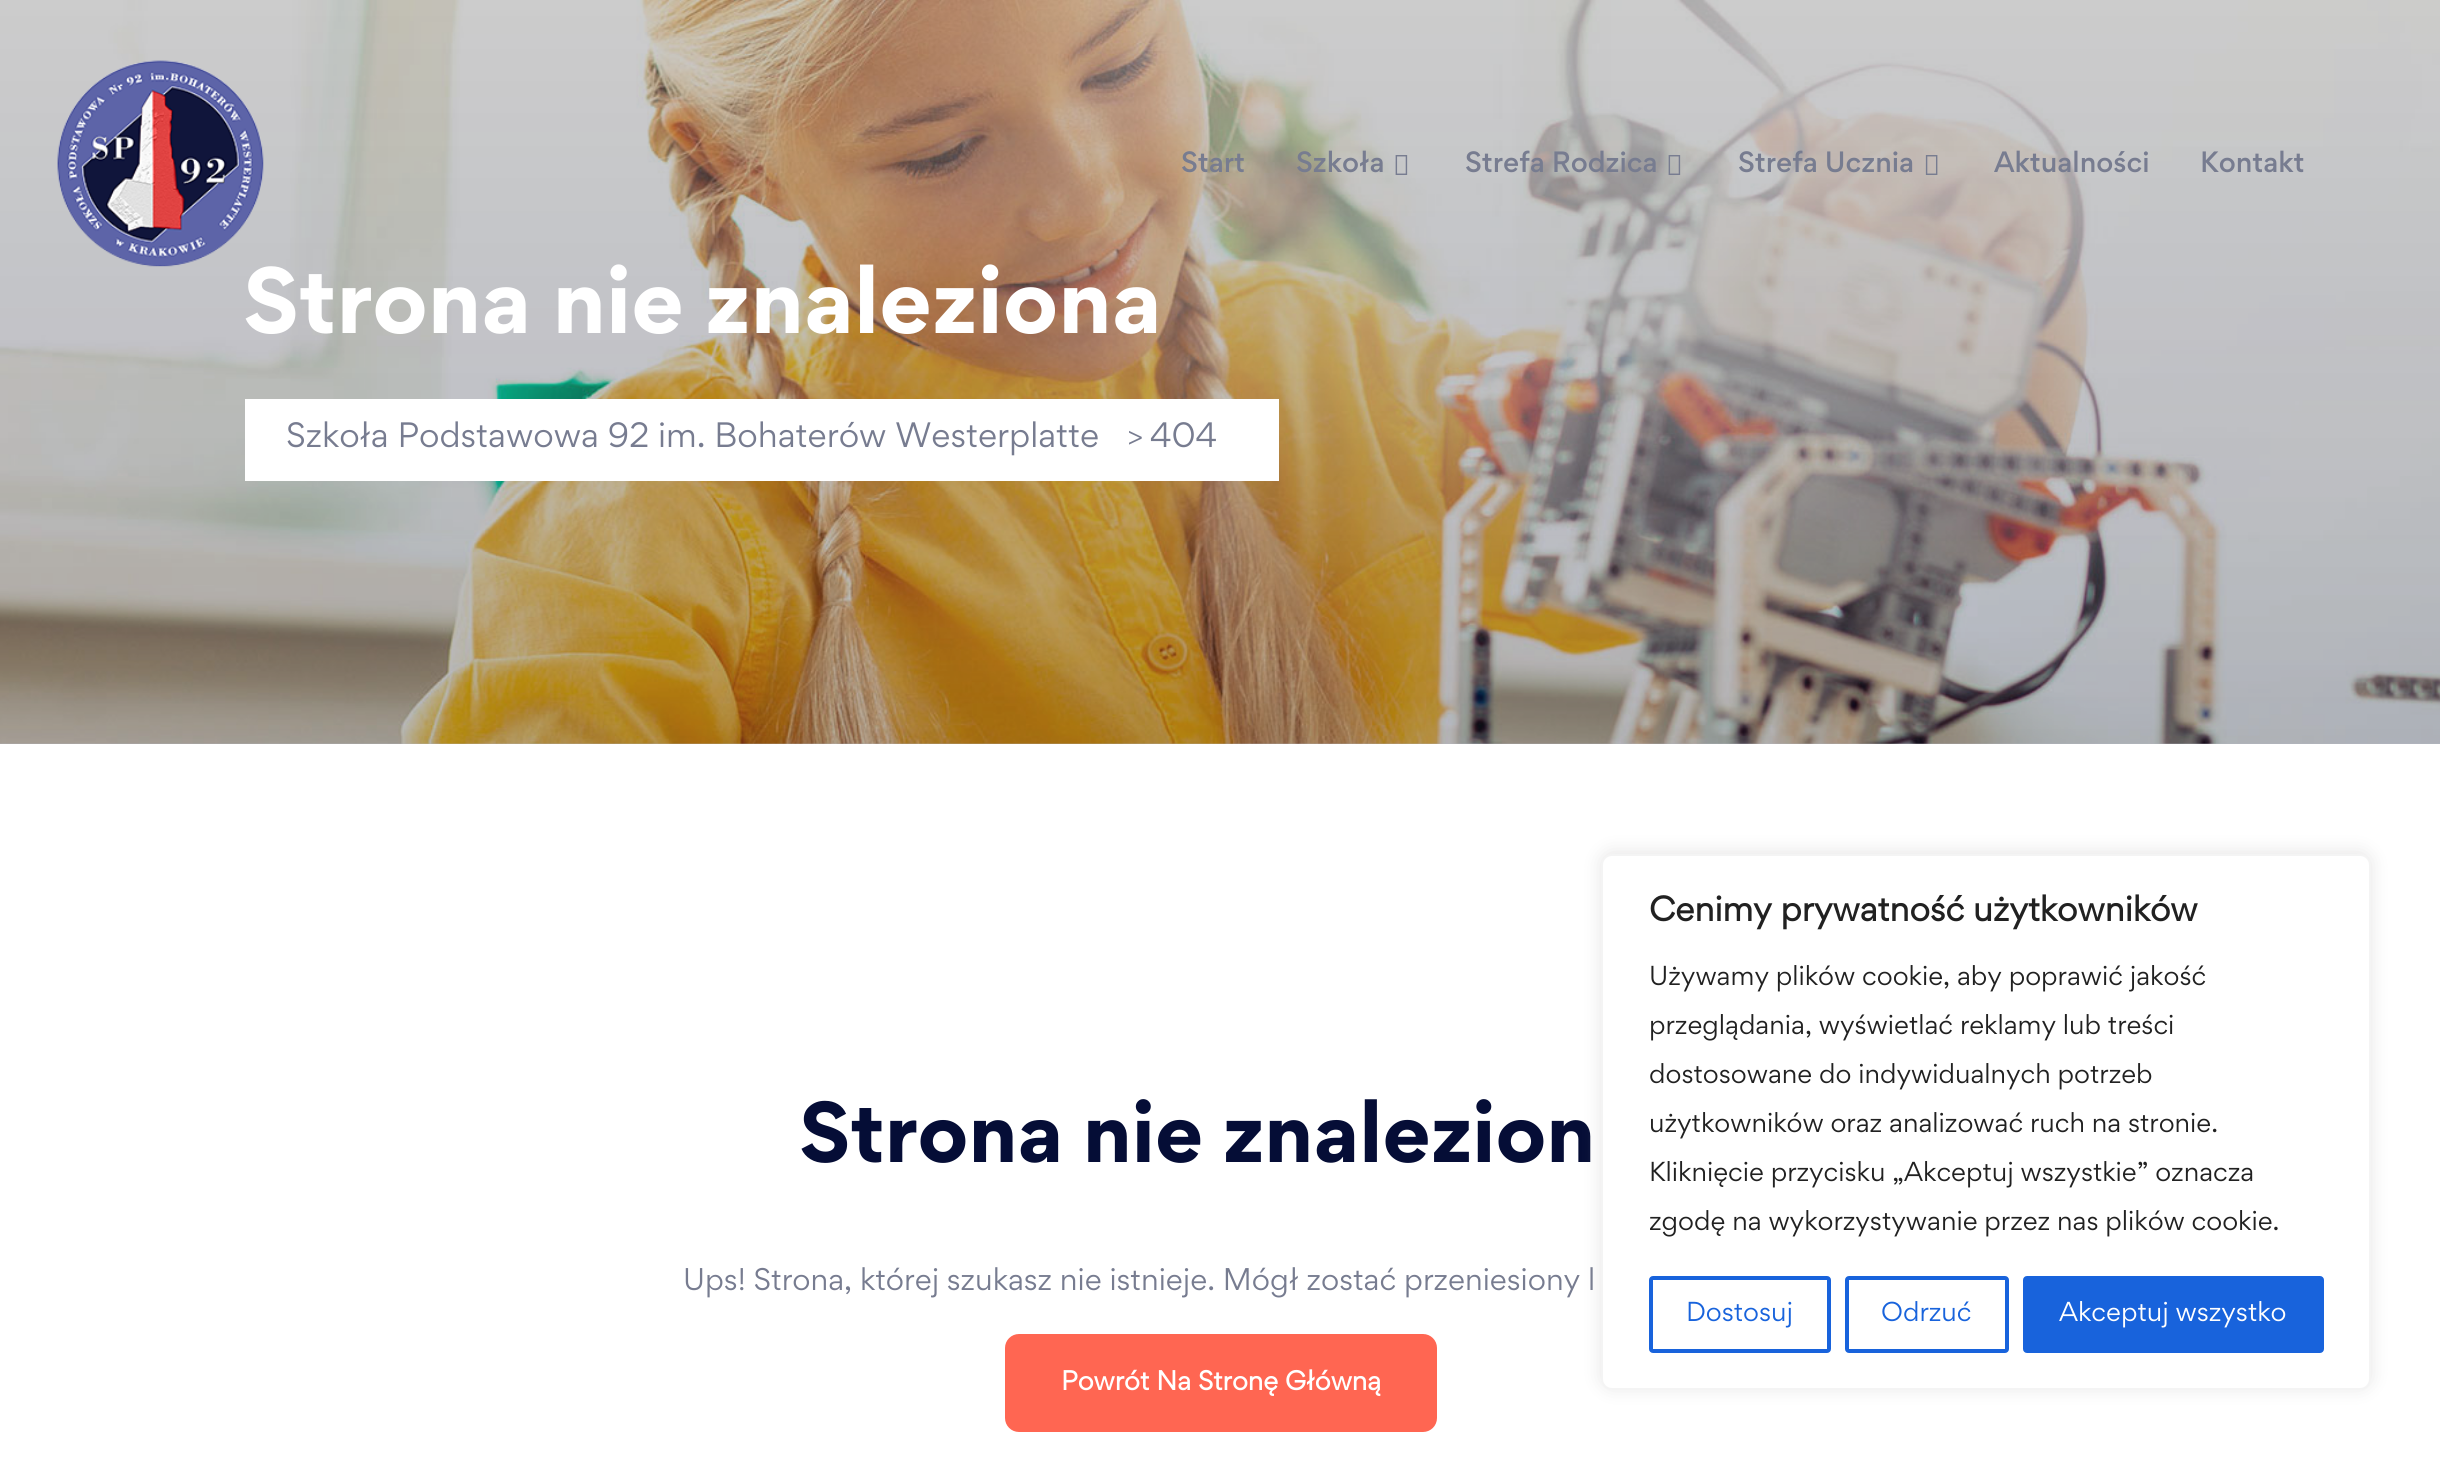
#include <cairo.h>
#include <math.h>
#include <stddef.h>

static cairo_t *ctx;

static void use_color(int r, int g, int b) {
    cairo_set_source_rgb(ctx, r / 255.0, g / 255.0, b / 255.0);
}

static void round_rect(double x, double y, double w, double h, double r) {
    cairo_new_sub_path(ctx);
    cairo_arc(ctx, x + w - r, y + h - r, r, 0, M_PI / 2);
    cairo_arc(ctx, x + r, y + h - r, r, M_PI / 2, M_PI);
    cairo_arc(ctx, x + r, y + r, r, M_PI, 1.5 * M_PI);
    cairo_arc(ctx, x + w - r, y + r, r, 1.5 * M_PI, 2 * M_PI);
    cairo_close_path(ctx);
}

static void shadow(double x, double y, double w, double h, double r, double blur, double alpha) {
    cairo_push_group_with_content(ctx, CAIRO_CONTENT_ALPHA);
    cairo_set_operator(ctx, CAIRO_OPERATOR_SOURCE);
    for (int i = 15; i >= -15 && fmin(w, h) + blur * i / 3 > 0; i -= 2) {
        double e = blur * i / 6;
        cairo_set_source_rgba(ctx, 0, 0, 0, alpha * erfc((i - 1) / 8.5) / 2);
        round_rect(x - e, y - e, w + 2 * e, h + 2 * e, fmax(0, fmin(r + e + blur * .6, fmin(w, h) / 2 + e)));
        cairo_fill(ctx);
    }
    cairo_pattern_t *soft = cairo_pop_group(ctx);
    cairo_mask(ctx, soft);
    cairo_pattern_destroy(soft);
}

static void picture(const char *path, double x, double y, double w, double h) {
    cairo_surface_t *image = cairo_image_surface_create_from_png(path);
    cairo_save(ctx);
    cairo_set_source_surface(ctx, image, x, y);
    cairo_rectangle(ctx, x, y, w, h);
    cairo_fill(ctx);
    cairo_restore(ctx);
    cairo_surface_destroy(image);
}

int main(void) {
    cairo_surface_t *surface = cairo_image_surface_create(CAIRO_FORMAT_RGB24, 2440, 1459);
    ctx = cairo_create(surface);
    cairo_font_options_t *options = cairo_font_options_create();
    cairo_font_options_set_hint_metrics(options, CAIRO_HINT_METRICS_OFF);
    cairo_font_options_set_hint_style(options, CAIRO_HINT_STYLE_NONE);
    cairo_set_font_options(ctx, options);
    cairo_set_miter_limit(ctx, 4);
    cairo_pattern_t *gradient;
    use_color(255, 255, 255);
    cairo_paint(ctx);
    picture("img5.png", 0, 0, 2440, 744);
    gradient = cairo_pattern_create_linear(1221, 0, 1221, 744);
    cairo_pattern_add_color_stop_rgba(gradient, 0, 0, 0, 0, 0.2);
    cairo_pattern_add_color_stop_rgba(gradient, 1, 0.02, 0.051, 0.212, 0.29);
    cairo_set_source(ctx, gradient);
    cairo_pattern_destroy(gradient);
    cairo_rectangle(ctx, 0, 0, 2440, 744);
    cairo_fill(ctx);
    cairo_select_font_face(ctx, "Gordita", CAIRO_FONT_SLANT_NORMAL, CAIRO_FONT_WEIGHT_BOLD);
    cairo_set_font_size(ctx, 84);
    use_color(255, 255, 255);
    cairo_move_to(ctx, 244, 333);
    cairo_show_text(ctx, "Strona nie znaleziona");
    picture("img1.png", 57, 60, 207, 207);
    cairo_select_font_face(ctx, "Gordita Medium", CAIRO_FONT_SLANT_NORMAL, CAIRO_FONT_WEIGHT_NORMAL);
    cairo_set_font_size(ctx, 26.25);
    use_color(119, 124, 144);
    cairo_move_to(ctx, 1181, 172);
    cairo_show_text(ctx, "Start");
    cairo_move_to(ctx, 1296, 172);
    cairo_show_text(ctx, "Szkoła");
    picture("img2.png", 1395, 155, 13, 20);
    cairo_move_to(ctx, 1465, 172);
    cairo_show_text(ctx, "Strefa Rodzica");
    picture("img3.png", 1668, 155, 13, 20);
    cairo_move_to(ctx, 1738, 172);
    cairo_show_text(ctx, "Strefa Ucznia");
    picture("img4.png", 1925, 155, 13, 20);
    cairo_move_to(ctx, 1994, 172);
    cairo_show_text(ctx, "Aktualności");
    cairo_move_to(ctx, 2200, 172);
    cairo_show_text(ctx, "Kontakt");
    use_color(255, 255, 255);
    cairo_rectangle(ctx, 245, 399, 1034, 82);
    cairo_fill(ctx);
    cairo_select_font_face(ctx, "Gordita", CAIRO_FONT_SLANT_NORMAL, CAIRO_FONT_WEIGHT_NORMAL);
    cairo_set_font_size(ctx, 31.5);
    use_color(119, 124, 144);
    cairo_move_to(ctx, 286, 447);
    cairo_show_text(ctx, "Szkoła Podstawowa 92 im. Bohaterów Westerplatte");
    cairo_set_font_size(ctx, 24.5);
    cairo_move_to(ctx, 1127, 447);
    cairo_show_text(ctx, ">");
    cairo_set_font_size(ctx, 31.5);
    cairo_move_to(ctx, 1150, 447);
    cairo_show_text(ctx, "404");
    cairo_select_font_face(ctx, "Gordita", CAIRO_FONT_SLANT_NORMAL, CAIRO_FONT_WEIGHT_BOLD);
    cairo_set_font_size(ctx, 77);
    use_color(5, 13, 54);
    cairo_move_to(ctx, 800, 1162);
    cairo_show_text(ctx, "Strona nie znalezion");
    cairo_select_font_face(ctx, "Gordita", CAIRO_FONT_SLANT_NORMAL, CAIRO_FONT_WEIGHT_NORMAL);
    cairo_set_font_size(ctx, 28);
    use_color(119, 124, 144);
    cairo_move_to(ctx, 683, 1290);
    cairo_show_text(ctx, "Ups! Strona, której szukasz nie istnieje. Mógł zostać przeniesiony l");
    use_color(255, 102, 82);
    round_rect(1005, 1334, 432, 98, 14);
    cairo_fill(ctx);
    cairo_select_font_face(ctx, "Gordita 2", CAIRO_FONT_SLANT_NORMAL, CAIRO_FONT_WEIGHT_BOLD);
    cairo_set_font_size(ctx, 24.5);
    use_color(255, 255, 255);
    cairo_move_to(ctx, 1061, 1390);
    cairo_show_text(ctx, "Powrót Na Stronę Główną");
    use_color(172, 171, 171);
    shadow(1601, 852, 770, 536, 11, 9, 0.3);
    use_color(255, 255, 255);
    round_rect(1602, 855, 768, 534, 10);
    cairo_fill_preserve(ctx);
    use_color(244, 244, 244);
    cairo_stroke(ctx);
    cairo_set_font_size(ctx, 31.5);
    use_color(33, 33, 33);
    cairo_move_to(ctx, 1649, 921);
    cairo_show_text(ctx, "Cenimy prywatność użytkowników");
    cairo_select_font_face(ctx, "Gordita", CAIRO_FONT_SLANT_NORMAL, CAIRO_FONT_WEIGHT_NORMAL);
    cairo_set_font_size(ctx, 24.5);
    cairo_move_to(ctx, 1649, 985);
    cairo_show_text(ctx, "Używamy plików cookie, aby poprawić jakość");
    cairo_move_to(ctx, 1649, 1034);
    cairo_show_text(ctx, "przeglądania, wyświetlać reklamy lub treści");
    cairo_move_to(ctx, 1649, 1083);
    cairo_show_text(ctx, "dostosowane do indywidualnych potrzeb");
    cairo_move_to(ctx, 1649, 1132);
    cairo_show_text(ctx, "użytkowników oraz analizować ruch na stronie.");
    cairo_move_to(ctx, 1649, 1181);
    cairo_show_text(ctx, "Kliknięcie przycisku „Akceptuj wszystkie” oznacza");
    cairo_move_to(ctx, 1649, 1230);
    cairo_show_text(ctx, "zgodę na wykorzystywanie przez nas plików cookie.");
    round_rect(1651, 1278, 178, 73, 2);
    use_color(24, 99, 220);
    cairo_set_line_width(ctx, 4);
    cairo_stroke(ctx);
    cairo_move_to(ctx, 1686, 1321);
    cairo_show_text(ctx, "Dostosuj");
    round_rect(1847, 1278, 160, 73, 2);
    cairo_stroke(ctx);
    cairo_move_to(ctx, 1881, 1321);
    cairo_show_text(ctx, "Odrzuć");
    round_rect(2025, 1278, 297, 73, 2);
    cairo_fill_preserve(ctx);
    cairo_stroke(ctx);
    use_color(255, 255, 255);
    cairo_move_to(ctx, 2059, 1321);
    cairo_show_text(ctx, "Akceptuj wszystko");
    cairo_surface_write_to_png(surface, "result.png");
    cairo_font_options_destroy(options);
    cairo_destroy(ctx);
    cairo_surface_destroy(surface);
    return 0;
}
